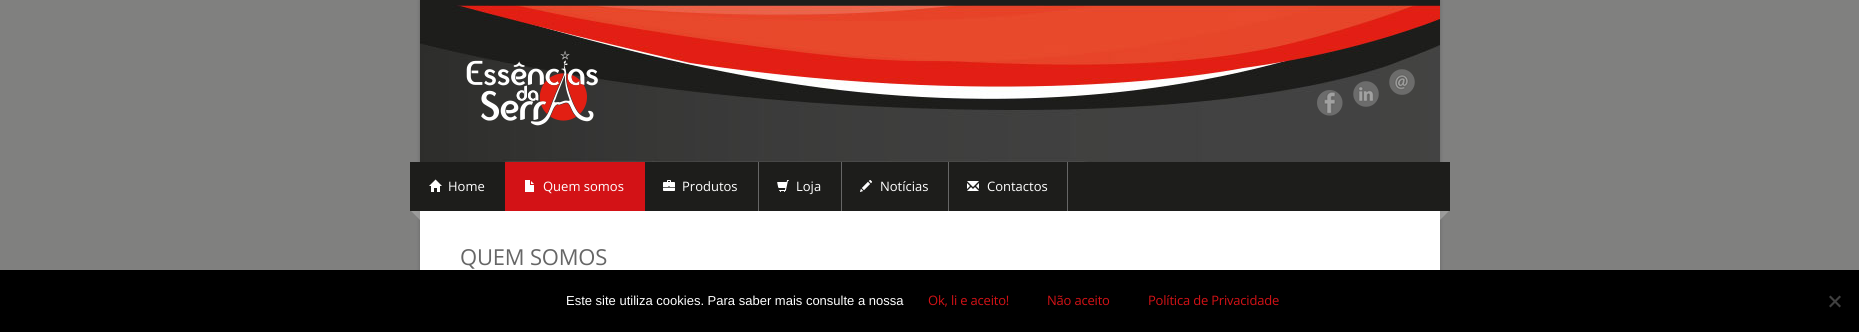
#include <cairo.h>
#include <math.h>
#include <stddef.h>

static cairo_t *ctx;

static void use_color(int r, int g, int b) {
    cairo_set_source_rgb(ctx, r / 255.0, g / 255.0, b / 255.0);
}

static void spaced_text(double x, double y, const char *s, double letter, double word) {
    cairo_move_to(ctx, x, y);
    while (*s) {
        char ch[5] = {0};
        int n = 0;
        do ch[n++] = *s++; while ((*s & 0xC0) == 0x80);
        cairo_show_text(ctx, ch);
        cairo_rel_move_to(ctx, letter + word * (*ch == ' '), 0);
    }
}

static void round_rect(double x, double y, double w, double h, double r) {
    cairo_new_sub_path(ctx);
    cairo_arc(ctx, x + w - r, y + h - r, r, 0, M_PI / 2);
    cairo_arc(ctx, x + r, y + h - r, r, M_PI / 2, M_PI);
    cairo_arc(ctx, x + r, y + r, r, M_PI, 1.5 * M_PI);
    cairo_arc(ctx, x + w - r, y + r, r, 1.5 * M_PI, 2 * M_PI);
    cairo_close_path(ctx);
}

static void shadow(double x, double y, double w, double h, double r, double blur, double alpha) {
    cairo_push_group_with_content(ctx, CAIRO_CONTENT_ALPHA);
    cairo_set_operator(ctx, CAIRO_OPERATOR_SOURCE);
    for (int i = 15; i >= -15 && fmin(w, h) + blur * i / 3 > 0; i -= 2) {
        double e = blur * i / 6;
        cairo_set_source_rgba(ctx, 0, 0, 0, alpha * erfc((i - 1) / 8.5) / 2);
        round_rect(x - e, y - e, w + 2 * e, h + 2 * e, fmax(0, fmin(r + e + blur * .6, fmin(w, h) / 2 + e)));
        cairo_fill(ctx);
    }
    cairo_pattern_t *soft = cairo_pop_group(ctx);
    cairo_mask(ctx, soft);
    cairo_pattern_destroy(soft);
}

static void picture(const char *path, double x, double y, double w, double h) {
    cairo_surface_t *image = cairo_image_surface_create_from_png(path);
    cairo_save(ctx);
    cairo_set_source_surface(ctx, image, x, y);
    cairo_rectangle(ctx, x, y, w, h);
    cairo_fill(ctx);
    cairo_restore(ctx);
    cairo_surface_destroy(image);
}

int main(void) {
    cairo_surface_t *surface = cairo_image_surface_create(CAIRO_FORMAT_RGB24, 1859, 332);
    ctx = cairo_create(surface);
    cairo_font_options_t *options = cairo_font_options_create();
    cairo_font_options_set_hint_metrics(options, CAIRO_HINT_METRICS_OFF);
    cairo_font_options_set_hint_style(options, CAIRO_HINT_STYLE_NONE);
    cairo_set_font_options(ctx, options);
    cairo_set_miter_limit(ctx, 4);
    use_color(128, 128, 127);
    cairo_paint(ctx);
    use_color(0, 0, 0);
    shadow(420, 0, 1020, 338, 0, 2, 0.2);
    use_color(255, 255, 255);
    cairo_rectangle(ctx, 420, 211, 1020, 59);
    cairo_fill(ctx);
    use_color(29, 29, 27);
    cairo_rectangle(ctx, 420, 0, 1020, 5);
    cairo_fill(ctx);
    picture("img1.png", 420, 5, 1020, 157);
    picture("img2.png", 466, 50, 132, 76);
    picture("img3.png", 1317, 90, 26, 26);
    picture("img4.png", 1353, 81, 26, 26);
    picture("img5.png", 1389, 69, 26, 26);
    cairo_rectangle(ctx, 410, 162, 1040, 49);
    cairo_fill(ctx);
    picture("img6.png", 429, 179, 13, 13);
    cairo_select_font_face(ctx, "Open Sans", CAIRO_FONT_SLANT_NORMAL, CAIRO_FONT_WEIGHT_NORMAL);
    cairo_set_font_size(ctx, 13);
    use_color(255, 255, 255);
    cairo_move_to(ctx, 448, 191);
    cairo_show_text(ctx, "Home");
    use_color(211, 18, 22);
    cairo_rectangle(ctx, 505, 162, 140, 49);
    cairo_fill(ctx);
    picture("img7.png", 525, 180, 9, 12);
    use_color(255, 255, 255);
    cairo_move_to(ctx, 543, 191);
    cairo_show_text(ctx, "Quem somos");
    use_color(102, 102, 102);
    cairo_rectangle(ctx, 758, 162, 1, 49);
    cairo_fill(ctx);
    picture("img8.png", 663, 180, 12, 11);
    use_color(255, 255, 255);
    cairo_move_to(ctx, 682, 191);
    cairo_show_text(ctx, "Produtos");
    use_color(102, 102, 102);
    cairo_rectangle(ctx, 841, 162, 1, 49);
    cairo_fill(ctx);
    picture("img9.png", 777, 180, 12, 12);
    use_color(255, 255, 255);
    cairo_move_to(ctx, 796, 191);
    cairo_show_text(ctx, "Loja");
    use_color(102, 102, 102);
    cairo_rectangle(ctx, 948, 162, 1, 49);
    cairo_fill(ctx);
    picture("img10.png", 860, 180, 12, 12);
    use_color(255, 255, 255);
    cairo_move_to(ctx, 880, 191);
    cairo_show_text(ctx, "Notícias");
    use_color(102, 102, 102);
    cairo_rectangle(ctx, 1067, 162, 1, 49);
    cairo_fill(ctx);
    picture("img11.png", 967, 181, 12, 10);
    use_color(255, 255, 255);
    cairo_move_to(ctx, 987, 191);
    cairo_show_text(ctx, "Contactos");
    cairo_set_source_rgba(ctx, 0.694, 0.694, 0.694, 0.58);
    cairo_new_path(ctx);
    cairo_move_to(ctx, 420, 211);
    cairo_line_to(ctx, 420, 220);
    cairo_line_to(ctx, 411, 211);
    cairo_close_path(ctx);
    cairo_fill(ctx);
    cairo_new_path(ctx);
    cairo_move_to(ctx, 1440, 211);
    cairo_line_to(ctx, 1449, 211);
    cairo_line_to(ctx, 1440, 220);
    cairo_close_path(ctx);
    cairo_fill(ctx);
    cairo_set_font_size(ctx, 22);
    use_color(102, 102, 102);
    spaced_text(460, 265, "QUEM SOMOS", -0.2, 0);
    use_color(0, 0, 0);
    cairo_rectangle(ctx, 0, 270, 1859, 62);
    cairo_fill(ctx);
    cairo_select_font_face(ctx, "Liberation Sans", CAIRO_FONT_SLANT_NORMAL, CAIRO_FONT_WEIGHT_NORMAL);
    cairo_set_font_size(ctx, 13);
    use_color(255, 255, 255);
    cairo_move_to(ctx, 566, 305);
    cairo_show_text(ctx, "Este site utiliza cookies. Para saber mais consulte a nossa");
    cairo_select_font_face(ctx, "Open Sans", CAIRO_FONT_SLANT_NORMAL, CAIRO_FONT_WEIGHT_NORMAL);
    use_color(211, 18, 22);
    spaced_text(928, 305, "Ok, li e aceito!", -0.2, 0);
    spaced_text(1047, 305, "Não aceito", -0.2, 0);
    spaced_text(1148, 305, "Política de Privacidade", -0.2, 0);
    use_color(64, 64, 64);
    cairo_new_path(ctx);
    cairo_move_to(ctx, 1839.5, 295.5);
    cairo_line_to(ctx, 1841, 297);
    cairo_line_to(ctx, 1830.5, 307.5);
    cairo_line_to(ctx, 1829, 306);
    cairo_close_path(ctx);
    cairo_fill(ctx);
    cairo_new_path(ctx);
    cairo_move_to(ctx, 1829, 297);
    cairo_line_to(ctx, 1830.5, 295.5);
    cairo_line_to(ctx, 1841, 306);
    cairo_line_to(ctx, 1839.5, 307.5);
    cairo_close_path(ctx);
    cairo_fill(ctx);
    cairo_surface_write_to_png(surface, "result.png");
    cairo_font_options_destroy(options);
    cairo_destroy(ctx);
    cairo_surface_destroy(surface);
    return 0;
}
